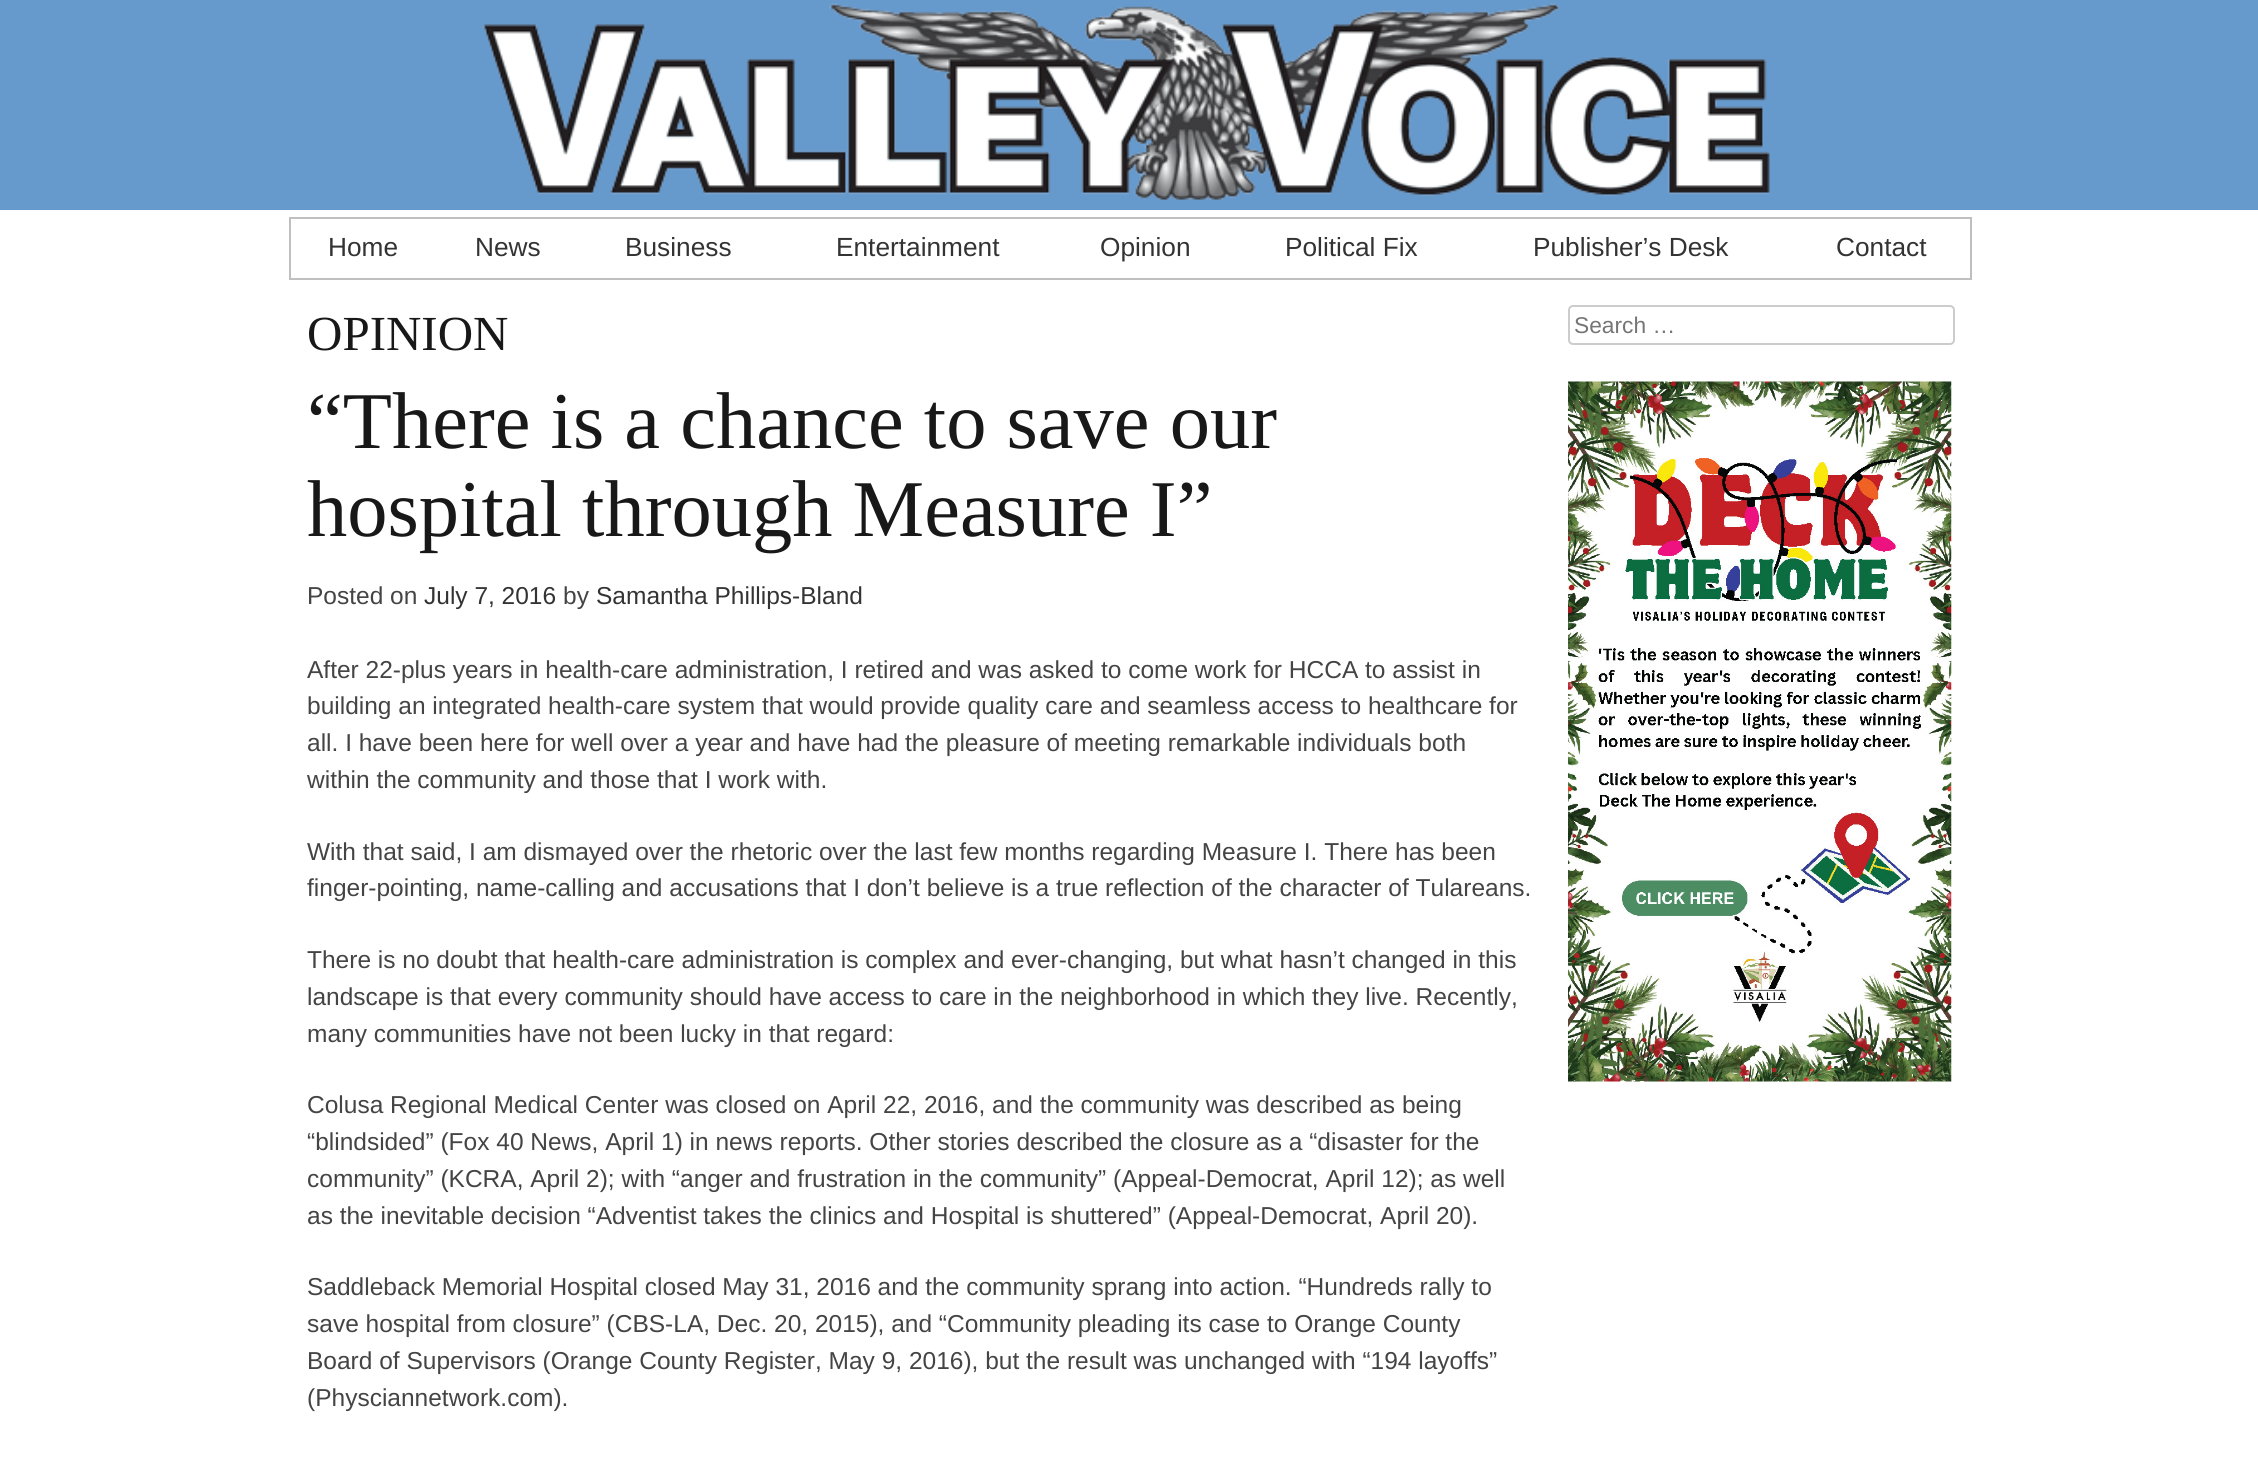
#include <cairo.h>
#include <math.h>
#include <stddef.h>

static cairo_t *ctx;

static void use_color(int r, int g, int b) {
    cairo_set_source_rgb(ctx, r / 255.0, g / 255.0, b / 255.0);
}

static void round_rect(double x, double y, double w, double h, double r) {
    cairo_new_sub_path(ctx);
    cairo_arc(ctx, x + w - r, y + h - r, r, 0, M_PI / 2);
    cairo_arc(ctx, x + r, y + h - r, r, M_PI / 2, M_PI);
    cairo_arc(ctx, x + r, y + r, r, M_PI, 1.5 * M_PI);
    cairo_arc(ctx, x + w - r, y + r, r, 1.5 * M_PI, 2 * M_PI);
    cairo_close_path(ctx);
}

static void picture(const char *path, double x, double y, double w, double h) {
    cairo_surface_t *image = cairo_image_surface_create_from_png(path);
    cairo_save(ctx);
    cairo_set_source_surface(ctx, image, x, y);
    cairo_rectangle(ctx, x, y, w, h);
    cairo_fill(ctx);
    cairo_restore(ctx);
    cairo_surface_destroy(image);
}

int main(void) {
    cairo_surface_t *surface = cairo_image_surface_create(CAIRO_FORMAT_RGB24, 2258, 1467);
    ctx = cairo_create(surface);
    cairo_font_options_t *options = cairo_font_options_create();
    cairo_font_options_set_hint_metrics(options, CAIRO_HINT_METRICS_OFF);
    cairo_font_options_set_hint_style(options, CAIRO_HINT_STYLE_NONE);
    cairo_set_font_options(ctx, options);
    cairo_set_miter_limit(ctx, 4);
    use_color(255, 255, 255);
    cairo_paint(ctx);
    use_color(102, 153, 204);
    cairo_rectangle(ctx, 0, 0, 2258, 210);
    cairo_fill(ctx);
    picture("img1.png", 483, 3, 1287, 197);
    cairo_rectangle(ctx, 290, 218, 1681, 61);
    use_color(191, 191, 191);
    cairo_stroke(ctx);
    cairo_select_font_face(ctx, "Liberation Sans", CAIRO_FONT_SLANT_NORMAL, CAIRO_FONT_WEIGHT_NORMAL);
    cairo_set_font_size(ctx, 26.25);
    use_color(51, 51, 51);
    cairo_move_to(ctx, 328, 256);
    cairo_show_text(ctx, "Home");
    cairo_move_to(ctx, 475, 256);
    cairo_show_text(ctx, "News");
    cairo_move_to(ctx, 625, 256);
    cairo_show_text(ctx, "Business");
    cairo_move_to(ctx, 836, 256);
    cairo_show_text(ctx, "Entertainment");
    cairo_move_to(ctx, 1100, 256);
    cairo_show_text(ctx, "Opinion");
    cairo_move_to(ctx, 1285, 256);
    cairo_show_text(ctx, "Political Fix");
    cairo_move_to(ctx, 1533, 256);
    cairo_show_text(ctx, "Publisher’s Desk");
    cairo_move_to(ctx, 1836, 256);
    cairo_show_text(ctx, "Contact");
    cairo_select_font_face(ctx, "Liberation Serif", CAIRO_FONT_SLANT_NORMAL, CAIRO_FONT_WEIGHT_NORMAL);
    cairo_set_font_size(ctx, 49);
    use_color(24, 24, 24);
    cairo_move_to(ctx, 307, 350);
    cairo_show_text(ctx, "OPINION");
    cairo_set_font_size(ctx, 80.5);
    cairo_move_to(ctx, 307, 448);
    cairo_show_text(ctx, "“There is a chance to save our");
    cairo_move_to(ctx, 307, 536);
    cairo_show_text(ctx, "hospital through Measure I”");
    cairo_select_font_face(ctx, "Liberation Sans", CAIRO_FONT_SLANT_NORMAL, CAIRO_FONT_WEIGHT_NORMAL);
    cairo_set_font_size(ctx, 24.5);
    use_color(68, 68, 68);
    cairo_move_to(ctx, 307, 604);
    cairo_show_text(ctx, "Posted on");
    use_color(51, 51, 51);
    cairo_move_to(ctx, 424, 604);
    cairo_show_text(ctx, "July 7, 2016");
    use_color(68, 68, 68);
    cairo_move_to(ctx, 563, 604);
    cairo_show_text(ctx, "by");
    use_color(51, 51, 51);
    cairo_move_to(ctx, 596, 604);
    cairo_show_text(ctx, "Samantha Phillips-Bland");
    use_color(68, 68, 68);
    cairo_move_to(ctx, 307, 678);
    cairo_show_text(ctx, "After 22-plus years in health-care administration, I retired and was asked to come work for HCCA to assist in");
    cairo_move_to(ctx, 307, 714);
    cairo_show_text(ctx, "building an integrated health-care system that would provide quality care and seamless access to healthcare for");
    cairo_move_to(ctx, 307, 751);
    cairo_show_text(ctx, "all. I have been here for well over a year and have had the pleasure of meeting remarkable individuals both");
    cairo_move_to(ctx, 307, 788);
    cairo_show_text(ctx, "within the community and those that I work with.");
    cairo_move_to(ctx, 307, 860);
    cairo_show_text(ctx, "With that said, I am dismayed over the rhetoric over the last few months regarding Measure I. There has been");
    cairo_move_to(ctx, 307, 896);
    cairo_show_text(ctx, "finger-pointing, name-calling and accusations that I don’t believe is a true reflection of the character of Tulareans.");
    cairo_move_to(ctx, 307, 968);
    cairo_show_text(ctx, "There is no doubt that health-care administration is complex and ever-changing, but what hasn’t changed in this");
    cairo_move_to(ctx, 307, 1005);
    cairo_show_text(ctx, "landscape is that every community should have access to care in the neighborhood in which they live. Recently,");
    cairo_move_to(ctx, 307, 1042);
    cairo_show_text(ctx, "many communities have not been lucky in that regard:");
    cairo_move_to(ctx, 307, 1113);
    cairo_show_text(ctx, "Colusa Regional Medical Center was closed on April 22, 2016, and the community was described as being");
    cairo_move_to(ctx, 307, 1150);
    cairo_show_text(ctx, "“blindsided” (Fox 40 News, April 1) in news reports. Other stories described the closure as a “disaster for the");
    cairo_move_to(ctx, 307, 1187);
    cairo_show_text(ctx, "community” (KCRA, April 2); with “anger and frustration in the community” (Appeal-Democrat, April 12); as well");
    cairo_move_to(ctx, 307, 1224);
    cairo_show_text(ctx, "as the inevitable decision “Adventist takes the clinics and Hospital is shuttered” (Appeal-Democrat, April 20).");
    cairo_move_to(ctx, 307, 1295);
    cairo_show_text(ctx, "Saddleback Memorial Hospital closed May 31, 2016 and the community sprang into action. “Hundreds rally to");
    cairo_move_to(ctx, 307, 1332);
    cairo_show_text(ctx, "save hospital from closure” (CBS-LA, Dec. 20, 2015), and “Community pleading its case to Orange County");
    cairo_move_to(ctx, 307, 1369);
    cairo_show_text(ctx, "Board of Supervisors (Orange County Register, May 9, 2016), but the result was unchanged with “194 layoffs”");
    cairo_move_to(ctx, 307, 1406);
    cairo_show_text(ctx, "(Physciannetwork.com).");
    round_rect(1569, 306, 385, 38, 4);
    use_color(204, 204, 204);
    cairo_stroke(ctx);
    cairo_set_font_size(ctx, 22.75);
    use_color(117, 117, 117);
    cairo_move_to(ctx, 1574, 333);
    cairo_show_text(ctx, "Search …");
    picture("img2.png", 1568, 381, 384, 701);
    cairo_surface_write_to_png(surface, "result.png");
    cairo_font_options_destroy(options);
    cairo_destroy(ctx);
    cairo_surface_destroy(surface);
    return 0;
}
